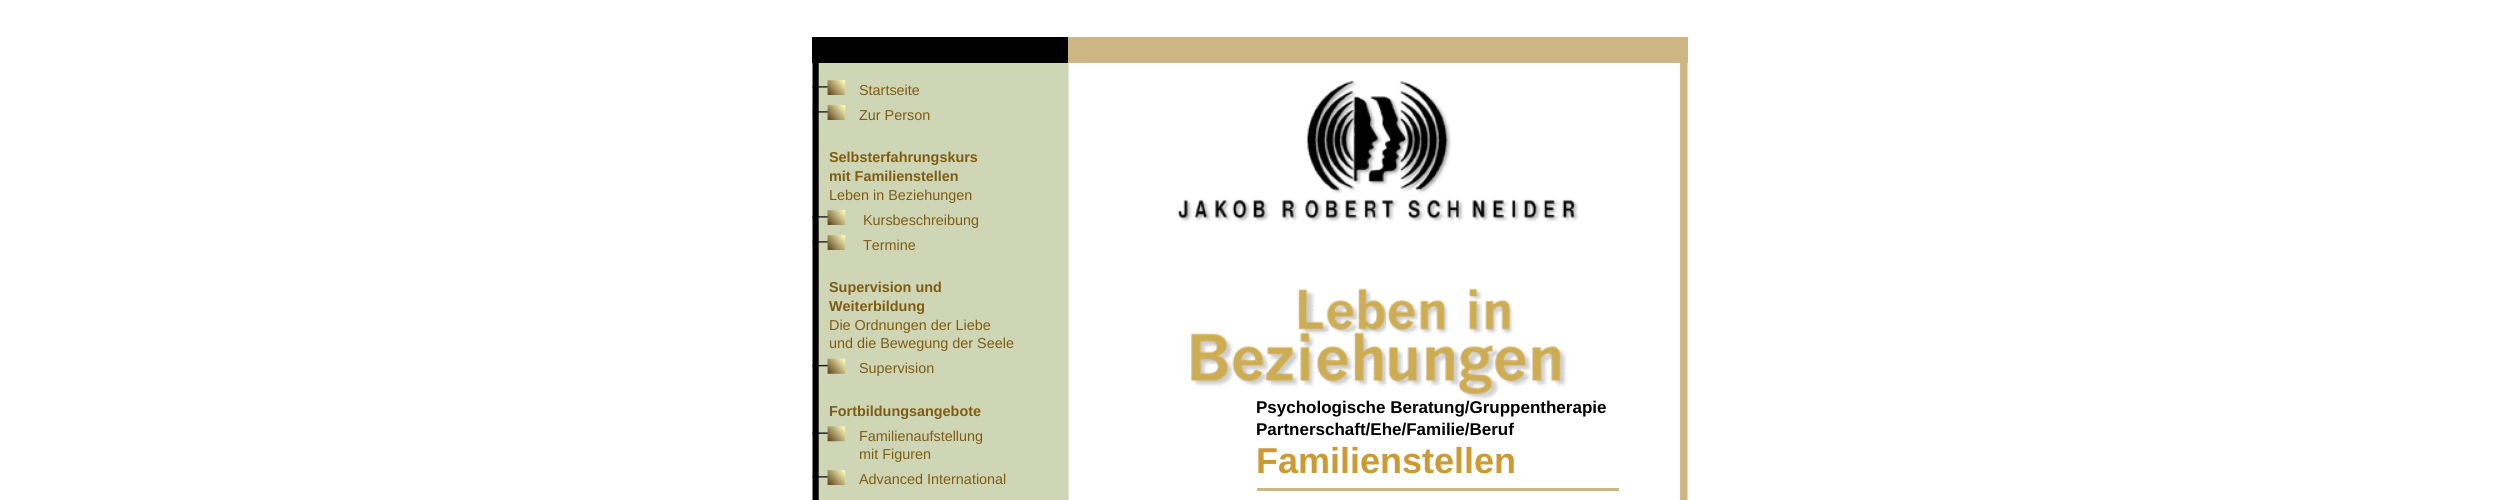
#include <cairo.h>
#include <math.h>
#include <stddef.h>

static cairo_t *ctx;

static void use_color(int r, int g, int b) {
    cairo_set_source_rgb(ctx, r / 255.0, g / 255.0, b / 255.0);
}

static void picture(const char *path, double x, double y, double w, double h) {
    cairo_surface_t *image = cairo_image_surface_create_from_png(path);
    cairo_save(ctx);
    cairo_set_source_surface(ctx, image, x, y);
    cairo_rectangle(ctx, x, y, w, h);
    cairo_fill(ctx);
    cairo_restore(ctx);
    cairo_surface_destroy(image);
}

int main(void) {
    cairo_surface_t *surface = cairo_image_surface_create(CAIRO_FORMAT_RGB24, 2500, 500);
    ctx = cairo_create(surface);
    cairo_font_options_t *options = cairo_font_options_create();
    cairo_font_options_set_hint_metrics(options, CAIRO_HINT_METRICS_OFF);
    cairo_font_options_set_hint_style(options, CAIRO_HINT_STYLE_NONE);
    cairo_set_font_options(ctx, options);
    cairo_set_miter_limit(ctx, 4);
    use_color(255, 255, 255);
    cairo_paint(ctx);
    picture("img1.png", 812, 63, 257, 437);
    use_color(0, 0, 0);
    cairo_rectangle(ctx, 812, 37, 256, 26);
    cairo_fill(ctx);
    picture("img2.png", 812, 79, 34, 16);
    cairo_select_font_face(ctx, "Liberation Sans", CAIRO_FONT_SLANT_NORMAL, CAIRO_FONT_WEIGHT_NORMAL);
    cairo_set_font_size(ctx, 14.4);
    use_color(126, 92, 20);
    cairo_move_to(ctx, 859, 95);
    cairo_show_text(ctx, "Startseite");
    picture("img2.png", 812, 104, 34, 16);
    cairo_move_to(ctx, 859, 120);
    cairo_show_text(ctx, "Zur Person");
    cairo_select_font_face(ctx, "Liberation Sans", CAIRO_FONT_SLANT_NORMAL, CAIRO_FONT_WEIGHT_BOLD);
    cairo_move_to(ctx, 829, 162);
    cairo_show_text(ctx, "Selbsterfahrungskurs");
    cairo_move_to(ctx, 829, 181);
    cairo_show_text(ctx, "mit Familienstellen");
    cairo_select_font_face(ctx, "Liberation Sans", CAIRO_FONT_SLANT_NORMAL, CAIRO_FONT_WEIGHT_NORMAL);
    cairo_move_to(ctx, 829, 200);
    cairo_show_text(ctx, "Leben in Beziehungen");
    picture("img2.png", 812, 209, 34, 16);
    cairo_move_to(ctx, 863, 225);
    cairo_show_text(ctx, "Kursbeschreibung");
    picture("img2.png", 812, 234, 34, 16);
    cairo_move_to(ctx, 863, 250);
    cairo_show_text(ctx, "Termine");
    cairo_select_font_face(ctx, "Liberation Sans", CAIRO_FONT_SLANT_NORMAL, CAIRO_FONT_WEIGHT_BOLD);
    cairo_move_to(ctx, 829, 292);
    cairo_show_text(ctx, "Supervision und");
    cairo_move_to(ctx, 829, 311);
    cairo_show_text(ctx, "Weiterbildung");
    cairo_select_font_face(ctx, "Liberation Sans", CAIRO_FONT_SLANT_NORMAL, CAIRO_FONT_WEIGHT_NORMAL);
    cairo_move_to(ctx, 829, 330);
    cairo_show_text(ctx, "Die Ordnungen der Liebe");
    cairo_move_to(ctx, 829, 348);
    cairo_show_text(ctx, "und die Bewegung der Seele");
    picture("img3.png", 812, 358, 34, 16);
    cairo_move_to(ctx, 859, 373);
    cairo_show_text(ctx, "Supervision");
    cairo_select_font_face(ctx, "Liberation Sans", CAIRO_FONT_SLANT_NORMAL, CAIRO_FONT_WEIGHT_BOLD);
    cairo_move_to(ctx, 829, 416);
    cairo_show_text(ctx, "Fortbildungsangebote");
    picture("img4.png", 812, 426, 34, 16);
    cairo_select_font_face(ctx, "Liberation Sans", CAIRO_FONT_SLANT_NORMAL, CAIRO_FONT_WEIGHT_NORMAL);
    cairo_move_to(ctx, 859, 441);
    cairo_show_text(ctx, "Familienaufstellung");
    cairo_move_to(ctx, 859, 459);
    cairo_show_text(ctx, "mit Figuren");
    picture("img2.png", 812, 469, 34, 16);
    cairo_move_to(ctx, 859, 484);
    cairo_show_text(ctx, "Advanced International");
    picture("img5.png", 1068, 63, 620, 437);
    use_color(206, 181, 132);
    cairo_rectangle(ctx, 1068, 37, 620, 26);
    cairo_fill(ctx);
    picture("img6.png", 1177, 199, 121, 23);
    picture("img7.png", 1305, 80, 159, 142);
    picture("img8.png", 1472, 199, 107, 23);
    picture("img9.png", 1298, 288, 216, 45);
    picture("img10.png", 1191, 332, 376, 38);
    picture("img11.png", 1191, 370, 376, 30);
    cairo_select_font_face(ctx, "Liberation Sans", CAIRO_FONT_SLANT_NORMAL, CAIRO_FONT_WEIGHT_BOLD);
    cairo_set_font_size(ctx, 17);
    use_color(0, 0, 0);
    cairo_move_to(ctx, 1256, 413);
    cairo_show_text(ctx, "Psychologische Beratung/Gruppentherapie");
    cairo_move_to(ctx, 1256, 435);
    cairo_show_text(ctx, "Partnerschaft/Ehe/Familie/Beruf");
    cairo_set_font_size(ctx, 36);
    use_color(204, 153, 51);
    cairo_move_to(ctx, 1256, 473);
    cairo_show_text(ctx, "Familienstellen");
    use_color(206, 181, 132);
    cairo_rectangle(ctx, 1257, 488, 362, 3);
    cairo_fill(ctx);
    cairo_surface_write_to_png(surface, "result.png");
    cairo_font_options_destroy(options);
    cairo_destroy(ctx);
    cairo_surface_destroy(surface);
    return 0;
}
